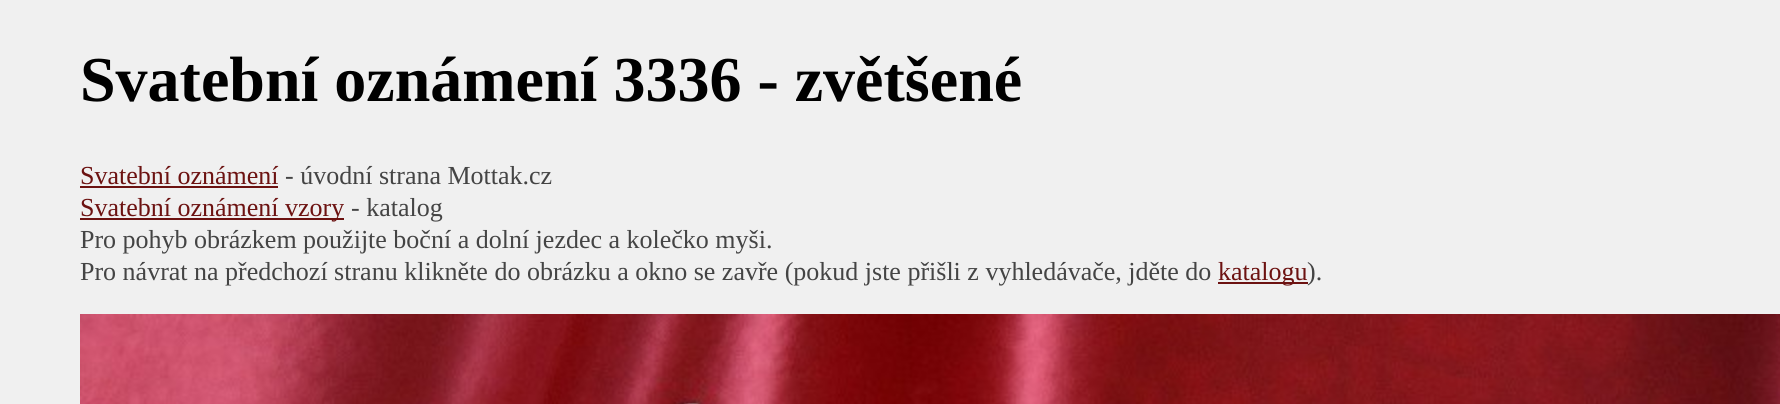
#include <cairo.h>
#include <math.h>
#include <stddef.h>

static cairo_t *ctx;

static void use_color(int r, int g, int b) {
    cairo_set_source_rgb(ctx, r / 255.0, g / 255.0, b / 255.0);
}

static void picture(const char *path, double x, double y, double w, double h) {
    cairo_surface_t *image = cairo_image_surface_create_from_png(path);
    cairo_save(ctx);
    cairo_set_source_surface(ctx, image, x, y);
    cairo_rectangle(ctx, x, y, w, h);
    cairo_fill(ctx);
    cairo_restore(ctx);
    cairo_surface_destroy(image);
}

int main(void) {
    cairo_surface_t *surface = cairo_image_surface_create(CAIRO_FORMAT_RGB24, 1780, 404);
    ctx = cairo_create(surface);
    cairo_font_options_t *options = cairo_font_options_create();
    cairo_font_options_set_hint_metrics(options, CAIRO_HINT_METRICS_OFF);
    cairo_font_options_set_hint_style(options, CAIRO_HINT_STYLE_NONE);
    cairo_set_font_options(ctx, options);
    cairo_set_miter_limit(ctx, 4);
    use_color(240, 240, 240);
    cairo_paint(ctx);
    cairo_select_font_face(ctx, "Liberation Serif", CAIRO_FONT_SLANT_NORMAL, CAIRO_FONT_WEIGHT_BOLD);
    cairo_set_font_size(ctx, 64);
    use_color(0, 0, 0);
    cairo_move_to(ctx, 80, 101);
    cairo_show_text(ctx, "Svatební oznámení 3336 - zvětšené");
    cairo_select_font_face(ctx, "Liberation Serif", CAIRO_FONT_SLANT_NORMAL, CAIRO_FONT_WEIGHT_NORMAL);
    cairo_set_font_size(ctx, 26);
    use_color(108, 18, 17);
    cairo_move_to(ctx, 80, 184);
    cairo_show_text(ctx, "Svatební oznámení");
    cairo_rectangle(ctx, 80, 186, 198, 2);
    cairo_fill(ctx);
    use_color(68, 68, 68);
    cairo_move_to(ctx, 285, 184);
    cairo_show_text(ctx, "- úvodní strana Mottak.cz");
    use_color(108, 18, 17);
    cairo_rectangle(ctx, 80, 218, 264, 2);
    cairo_fill(ctx);
    cairo_move_to(ctx, 80, 216);
    cairo_show_text(ctx, "Svatební oznámení vzory");
    use_color(68, 68, 68);
    cairo_move_to(ctx, 351, 216);
    cairo_show_text(ctx, "- katalog");
    cairo_move_to(ctx, 80, 248);
    cairo_show_text(ctx, "Pro pohyb obrázkem použijte boční a dolní jezdec a kolečko myši.");
    cairo_move_to(ctx, 80, 280);
    cairo_show_text(ctx, "Pro návrat na předchozí stranu klikněte do obrázku a okno se zavře (pokud jste přišli z vyhledávače, jděte do");
    use_color(108, 18, 17);
    cairo_rectangle(ctx, 1218, 282, 90, 2);
    cairo_fill(ctx);
    cairo_move_to(ctx, 1218, 280);
    cairo_show_text(ctx, "katalogu");
    use_color(68, 68, 68);
    cairo_move_to(ctx, 1307, 280);
    cairo_show_text(ctx, ").");
    picture("img1.png", 80, 314, 1700, 90);
    cairo_surface_write_to_png(surface, "result.png");
    cairo_font_options_destroy(options);
    cairo_destroy(ctx);
    cairo_surface_destroy(surface);
    return 0;
}
